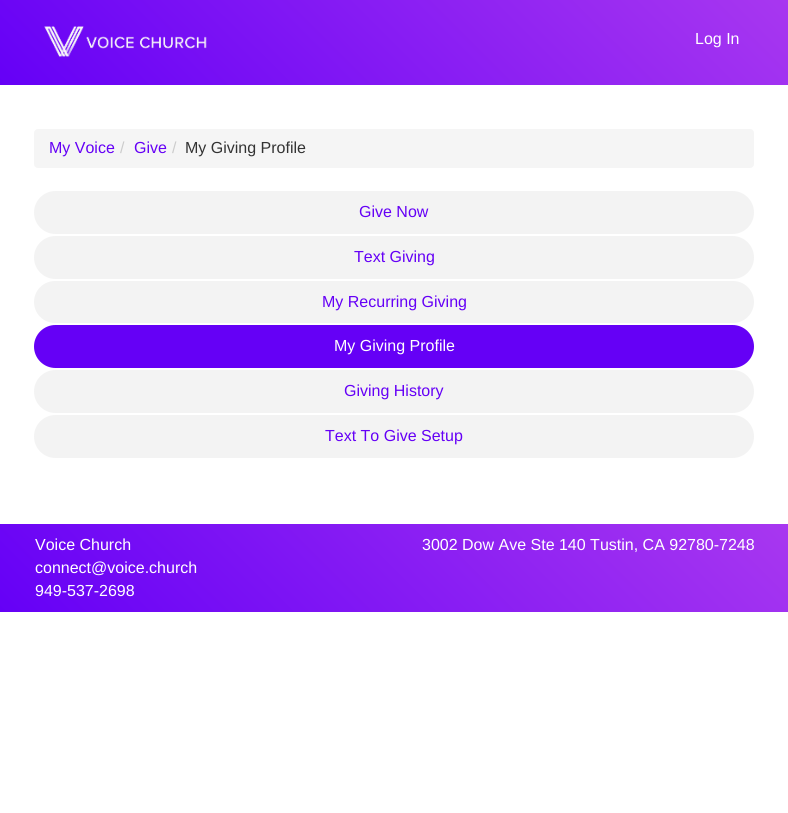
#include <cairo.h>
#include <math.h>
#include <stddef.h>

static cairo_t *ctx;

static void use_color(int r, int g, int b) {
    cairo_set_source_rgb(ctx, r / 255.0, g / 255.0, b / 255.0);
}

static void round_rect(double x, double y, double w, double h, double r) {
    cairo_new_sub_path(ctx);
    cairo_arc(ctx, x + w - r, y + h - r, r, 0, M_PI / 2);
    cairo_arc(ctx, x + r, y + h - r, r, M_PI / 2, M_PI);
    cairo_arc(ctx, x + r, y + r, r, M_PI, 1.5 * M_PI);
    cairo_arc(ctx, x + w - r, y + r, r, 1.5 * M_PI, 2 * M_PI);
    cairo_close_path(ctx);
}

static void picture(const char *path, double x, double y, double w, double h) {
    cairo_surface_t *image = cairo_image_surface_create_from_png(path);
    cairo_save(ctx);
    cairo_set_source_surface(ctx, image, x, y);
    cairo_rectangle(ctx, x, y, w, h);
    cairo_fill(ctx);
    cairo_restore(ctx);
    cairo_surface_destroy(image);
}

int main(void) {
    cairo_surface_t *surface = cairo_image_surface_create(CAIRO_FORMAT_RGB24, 788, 813);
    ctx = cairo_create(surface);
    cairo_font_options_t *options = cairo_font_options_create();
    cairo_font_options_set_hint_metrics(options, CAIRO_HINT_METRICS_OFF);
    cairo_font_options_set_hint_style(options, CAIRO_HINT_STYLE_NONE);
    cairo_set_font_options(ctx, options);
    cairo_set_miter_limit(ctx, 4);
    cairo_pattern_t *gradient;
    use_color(255, 255, 255);
    cairo_paint(ctx);
    gradient = cairo_pattern_create_linear(176, 261, 612, -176);
    cairo_pattern_add_color_stop_rgba(gradient, 0, 0.396, 0, 0.965, 1);
    cairo_pattern_add_color_stop_rgba(gradient, 1, 0.659, 0.216, 0.941, 1);
    cairo_set_source(ctx, gradient);
    cairo_pattern_destroy(gradient);
    cairo_rectangle(ctx, 0, 0, 788, 85);
    cairo_fill(ctx);
    picture("img1.png", 44, 26, 163, 31);
    cairo_select_font_face(ctx, "Liberation Sans", CAIRO_FONT_SLANT_NORMAL, CAIRO_FONT_WEIGHT_NORMAL);
    cairo_set_font_size(ctx, 16);
    use_color(255, 255, 255);
    cairo_move_to(ctx, 695, 44);
    cairo_show_text(ctx, "Log In");
    use_color(245, 245, 245);
    round_rect(34, 129, 720, 39, 4);
    cairo_fill(ctx);
    use_color(101, 0, 246);
    cairo_move_to(ctx, 49, 153);
    cairo_show_text(ctx, "My Voice");
    use_color(204, 204, 204);
    cairo_move_to(ctx, 120, 153);
    cairo_show_text(ctx, "/");
    use_color(101, 0, 246);
    cairo_move_to(ctx, 134, 153);
    cairo_show_text(ctx, "Give");
    use_color(204, 204, 204);
    cairo_move_to(ctx, 172, 153);
    cairo_show_text(ctx, "/");
    use_color(51, 51, 51);
    cairo_move_to(ctx, 185, 153);
    cairo_show_text(ctx, "My Giving Profile");
    use_color(243, 243, 243);
    round_rect(34, 191, 720, 43, 21.5);
    cairo_fill(ctx);
    use_color(101, 0, 246);
    cairo_move_to(ctx, 359, 217);
    cairo_show_text(ctx, "Give Now");
    use_color(243, 243, 243);
    round_rect(34, 236, 720, 43, 21.5);
    cairo_fill(ctx);
    use_color(101, 0, 246);
    cairo_move_to(ctx, 354, 262);
    cairo_show_text(ctx, "Text Giving");
    use_color(243, 243, 243);
    round_rect(34, 281, 720, 42, 21);
    cairo_fill(ctx);
    use_color(101, 0, 246);
    cairo_move_to(ctx, 322, 307);
    cairo_show_text(ctx, "My Recurring Giving");
    round_rect(34, 325, 720, 43, 21.5);
    cairo_fill(ctx);
    use_color(255, 255, 255);
    cairo_move_to(ctx, 334, 351);
    cairo_show_text(ctx, "My Giving Profile");
    use_color(243, 243, 243);
    round_rect(34, 370, 720, 43, 21.5);
    cairo_fill(ctx);
    use_color(101, 0, 246);
    cairo_move_to(ctx, 344, 396);
    cairo_show_text(ctx, "Giving History");
    use_color(243, 243, 243);
    round_rect(34, 415, 720, 43, 21.5);
    cairo_fill(ctx);
    use_color(101, 0, 246);
    cairo_move_to(ctx, 325, 441);
    cairo_show_text(ctx, "Text To Give Setup");
    gradient = cairo_pattern_create_linear(175, 787, 613, 349);
    cairo_pattern_add_color_stop_rgba(gradient, 0, 0.396, 0, 0.965, 1);
    cairo_pattern_add_color_stop_rgba(gradient, 1, 0.659, 0.216, 0.941, 1);
    cairo_set_source(ctx, gradient);
    cairo_pattern_destroy(gradient);
    cairo_rectangle(ctx, 0, 524, 788, 88);
    cairo_fill(ctx);
    use_color(255, 255, 255);
    cairo_move_to(ctx, 35, 550);
    cairo_show_text(ctx, "Voice Church");
    cairo_move_to(ctx, 35, 573);
    cairo_show_text(ctx, "connect@voice.church");
    cairo_move_to(ctx, 35, 596);
    cairo_show_text(ctx, "949-537-2698");
    cairo_move_to(ctx, 422, 550);
    cairo_show_text(ctx, "3002 Dow Ave Ste 140 Tustin, CA 92780-7248");
    cairo_surface_write_to_png(surface, "result.png");
    cairo_font_options_destroy(options);
    cairo_destroy(ctx);
    cairo_surface_destroy(surface);
    return 0;
}
